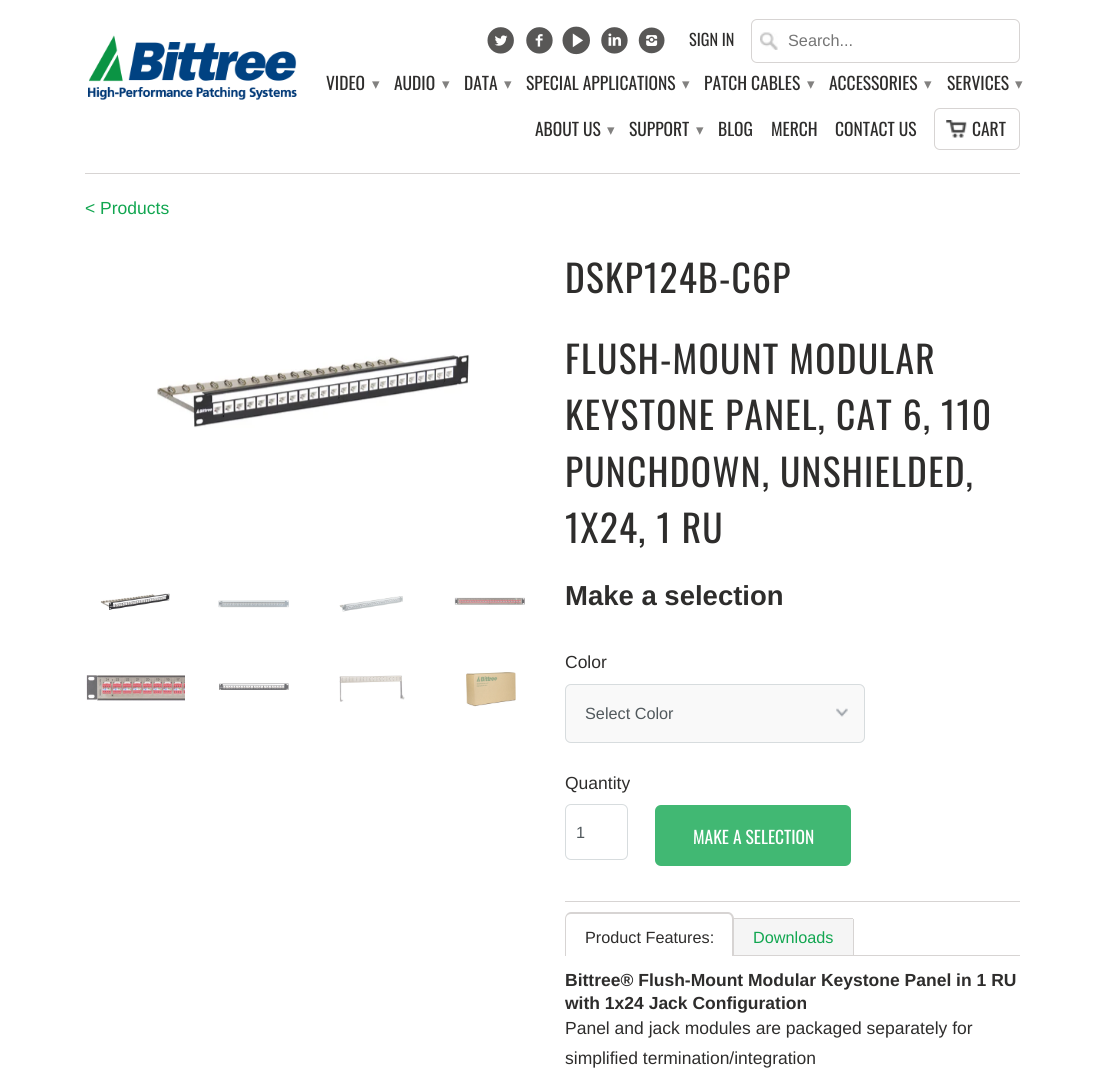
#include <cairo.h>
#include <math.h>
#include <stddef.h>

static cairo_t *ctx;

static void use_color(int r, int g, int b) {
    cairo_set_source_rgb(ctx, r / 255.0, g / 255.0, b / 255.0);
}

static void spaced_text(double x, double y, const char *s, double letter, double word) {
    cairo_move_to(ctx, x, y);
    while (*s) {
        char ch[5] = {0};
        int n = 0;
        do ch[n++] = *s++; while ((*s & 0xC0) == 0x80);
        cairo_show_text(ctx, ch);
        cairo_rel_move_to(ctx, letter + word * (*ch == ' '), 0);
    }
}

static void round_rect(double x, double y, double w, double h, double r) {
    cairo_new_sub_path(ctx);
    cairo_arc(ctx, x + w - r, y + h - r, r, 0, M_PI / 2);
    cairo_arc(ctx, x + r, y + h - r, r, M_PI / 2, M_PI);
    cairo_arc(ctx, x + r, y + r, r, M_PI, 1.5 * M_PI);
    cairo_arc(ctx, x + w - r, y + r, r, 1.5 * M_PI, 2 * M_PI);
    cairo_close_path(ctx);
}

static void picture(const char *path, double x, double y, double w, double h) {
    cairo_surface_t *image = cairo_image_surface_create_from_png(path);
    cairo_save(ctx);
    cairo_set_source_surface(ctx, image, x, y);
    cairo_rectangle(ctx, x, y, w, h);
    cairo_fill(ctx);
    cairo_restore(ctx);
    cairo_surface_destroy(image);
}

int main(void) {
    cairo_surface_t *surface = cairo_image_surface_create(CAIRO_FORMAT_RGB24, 1105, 1070);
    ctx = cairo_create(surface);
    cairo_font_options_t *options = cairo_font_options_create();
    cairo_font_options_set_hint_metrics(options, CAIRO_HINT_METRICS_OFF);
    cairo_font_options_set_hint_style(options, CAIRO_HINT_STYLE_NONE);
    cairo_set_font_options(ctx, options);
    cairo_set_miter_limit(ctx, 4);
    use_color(255, 255, 255);
    cairo_paint(ctx);
    use_color(215, 212, 211);
    cairo_rectangle(ctx, 85, 173, 935, 1);
    cairo_fill(ctx);
    picture("img1.png", 88, 35, 209, 65);
    picture("img2.png", 487, 27, 27, 27);
    picture("img3.png", 526, 27, 27, 27);
    picture("img4.png", 562, 26, 28, 29);
    picture("img5.png", 601, 27, 27, 27);
    picture("img6.png", 638, 27, 27, 27);
    cairo_select_font_face(ctx, "Oswald", CAIRO_FONT_SLANT_NORMAL, CAIRO_FONT_WEIGHT_NORMAL);
    cairo_set_font_size(ctx, 16.25);
    use_color(46, 45, 44);
    cairo_move_to(ctx, 689, 46);
    cairo_show_text(ctx, "SIGN IN");
    picture("img7.png", 760, 32, 18, 18);
    round_rect(751.5, 19.5, 268, 43, 5.5);
    use_color(215, 212, 211);
    cairo_set_line_width(ctx, 1);
    cairo_stroke(ctx);
    cairo_select_font_face(ctx, "Liberation Sans", CAIRO_FONT_SLANT_NORMAL, CAIRO_FONT_WEIGHT_NORMAL);
    use_color(117, 117, 117);
    cairo_move_to(ctx, 788, 46);
    cairo_show_text(ctx, "Search...");
    cairo_select_font_face(ctx, "Oswald", CAIRO_FONT_SLANT_NORMAL, CAIRO_FONT_WEIGHT_NORMAL);
    cairo_set_font_size(ctx, 17.5);
    use_color(46, 45, 44);
    cairo_move_to(ctx, 326, 90);
    cairo_show_text(ctx, "VIDEO");
    cairo_select_font_face(ctx, "DejaVu Sans", CAIRO_FONT_SLANT_NORMAL, CAIRO_FONT_WEIGHT_NORMAL);
    cairo_set_font_size(ctx, 15);
    use_color(130, 129, 128);
    cairo_move_to(ctx, 372, 89);
    cairo_show_text(ctx, "▾");
    cairo_select_font_face(ctx, "Oswald", CAIRO_FONT_SLANT_NORMAL, CAIRO_FONT_WEIGHT_NORMAL);
    cairo_set_font_size(ctx, 17.5);
    use_color(46, 45, 44);
    cairo_move_to(ctx, 394, 90);
    cairo_show_text(ctx, "AUDIO");
    cairo_select_font_face(ctx, "DejaVu Sans", CAIRO_FONT_SLANT_NORMAL, CAIRO_FONT_WEIGHT_NORMAL);
    cairo_set_font_size(ctx, 15);
    use_color(130, 129, 128);
    cairo_move_to(ctx, 442, 89);
    cairo_show_text(ctx, "▾");
    cairo_select_font_face(ctx, "Oswald", CAIRO_FONT_SLANT_NORMAL, CAIRO_FONT_WEIGHT_NORMAL);
    cairo_set_font_size(ctx, 17.5);
    use_color(46, 45, 44);
    cairo_move_to(ctx, 464, 90);
    cairo_show_text(ctx, "DATA");
    cairo_select_font_face(ctx, "DejaVu Sans", CAIRO_FONT_SLANT_NORMAL, CAIRO_FONT_WEIGHT_NORMAL);
    cairo_set_font_size(ctx, 15);
    use_color(130, 129, 128);
    cairo_move_to(ctx, 504, 89);
    cairo_show_text(ctx, "▾");
    cairo_select_font_face(ctx, "Oswald", CAIRO_FONT_SLANT_NORMAL, CAIRO_FONT_WEIGHT_NORMAL);
    cairo_set_font_size(ctx, 17.5);
    use_color(46, 45, 44);
    cairo_move_to(ctx, 526, 90);
    cairo_show_text(ctx, "SPECIAL APPLICATIONS");
    cairo_select_font_face(ctx, "DejaVu Sans", CAIRO_FONT_SLANT_NORMAL, CAIRO_FONT_WEIGHT_NORMAL);
    cairo_set_font_size(ctx, 15);
    use_color(130, 129, 128);
    cairo_move_to(ctx, 682, 89);
    cairo_show_text(ctx, "▾");
    cairo_select_font_face(ctx, "Oswald", CAIRO_FONT_SLANT_NORMAL, CAIRO_FONT_WEIGHT_NORMAL);
    cairo_set_font_size(ctx, 17.5);
    use_color(46, 45, 44);
    cairo_move_to(ctx, 704, 90);
    cairo_show_text(ctx, "PATCH CABLES");
    cairo_select_font_face(ctx, "DejaVu Sans", CAIRO_FONT_SLANT_NORMAL, CAIRO_FONT_WEIGHT_NORMAL);
    cairo_set_font_size(ctx, 15);
    use_color(130, 129, 128);
    cairo_move_to(ctx, 807, 89);
    cairo_show_text(ctx, "▾");
    cairo_select_font_face(ctx, "Oswald", CAIRO_FONT_SLANT_NORMAL, CAIRO_FONT_WEIGHT_NORMAL);
    cairo_set_font_size(ctx, 17.5);
    use_color(46, 45, 44);
    cairo_move_to(ctx, 829, 90);
    cairo_show_text(ctx, "ACCESSORIES");
    cairo_select_font_face(ctx, "DejaVu Sans", CAIRO_FONT_SLANT_NORMAL, CAIRO_FONT_WEIGHT_NORMAL);
    cairo_set_font_size(ctx, 15);
    use_color(130, 129, 128);
    cairo_move_to(ctx, 924, 89);
    cairo_show_text(ctx, "▾");
    cairo_select_font_face(ctx, "Oswald", CAIRO_FONT_SLANT_NORMAL, CAIRO_FONT_WEIGHT_NORMAL);
    cairo_set_font_size(ctx, 17.5);
    use_color(46, 45, 44);
    cairo_move_to(ctx, 947, 90);
    cairo_show_text(ctx, "SERVICES");
    cairo_select_font_face(ctx, "DejaVu Sans", CAIRO_FONT_SLANT_NORMAL, CAIRO_FONT_WEIGHT_NORMAL);
    cairo_set_font_size(ctx, 15);
    use_color(130, 129, 128);
    cairo_move_to(ctx, 1015, 89);
    cairo_show_text(ctx, "▾");
    cairo_select_font_face(ctx, "Oswald", CAIRO_FONT_SLANT_NORMAL, CAIRO_FONT_WEIGHT_NORMAL);
    cairo_set_font_size(ctx, 17.5);
    use_color(46, 45, 44);
    cairo_move_to(ctx, 535, 136);
    cairo_show_text(ctx, "ABOUT US");
    cairo_select_font_face(ctx, "DejaVu Sans", CAIRO_FONT_SLANT_NORMAL, CAIRO_FONT_WEIGHT_NORMAL);
    cairo_set_font_size(ctx, 15);
    use_color(130, 129, 128);
    cairo_move_to(ctx, 607, 135);
    cairo_show_text(ctx, "▾");
    cairo_select_font_face(ctx, "Oswald", CAIRO_FONT_SLANT_NORMAL, CAIRO_FONT_WEIGHT_NORMAL);
    cairo_set_font_size(ctx, 17.5);
    use_color(46, 45, 44);
    cairo_move_to(ctx, 629, 136);
    cairo_show_text(ctx, "SUPPORT");
    cairo_select_font_face(ctx, "DejaVu Sans", CAIRO_FONT_SLANT_NORMAL, CAIRO_FONT_WEIGHT_NORMAL);
    cairo_set_font_size(ctx, 15);
    use_color(130, 129, 128);
    cairo_move_to(ctx, 696, 135);
    cairo_show_text(ctx, "▾");
    cairo_select_font_face(ctx, "Oswald", CAIRO_FONT_SLANT_NORMAL, CAIRO_FONT_WEIGHT_NORMAL);
    cairo_set_font_size(ctx, 17.5);
    use_color(46, 45, 44);
    cairo_move_to(ctx, 718, 136);
    cairo_show_text(ctx, "BLOG");
    cairo_move_to(ctx, 771, 136);
    cairo_show_text(ctx, "MERCH");
    cairo_move_to(ctx, 835, 136);
    cairo_show_text(ctx, "CONTACT US");
    picture("img8.png", 946, 120, 21, 18);
    round_rect(934.5, 108.5, 85, 41, 5.5);
    use_color(215, 212, 211);
    cairo_stroke(ctx);
    use_color(46, 45, 44);
    cairo_move_to(ctx, 972, 136);
    cairo_show_text(ctx, "CART");
    cairo_select_font_face(ctx, "Liberation Sans", CAIRO_FONT_SLANT_NORMAL, CAIRO_FONT_WEIGHT_NORMAL);
    use_color(17, 166, 80);
    cairo_move_to(ctx, 85, 214);
    cairo_show_text(ctx, "< Products");
    picture("img9.png", 157, 354, 313, 74);
    picture("img10.png", 100, 593, 70, 17);
    picture("img11.png", 218, 600, 71, 8);
    picture("img12.png", 339, 596, 64, 16);
    picture("img13.png", 454, 597, 71, 8);
    picture("img14.png", 86, 675, 99, 26);
    picture("img15.png", 219, 683, 70, 7);
    picture("img16.png", 339, 675, 66, 27);
    picture("img17.png", 466, 672, 50, 35);
    cairo_select_font_face(ctx, "Oswald", CAIRO_FONT_SLANT_NORMAL, CAIRO_FONT_WEIGHT_NORMAL);
    cairo_set_font_size(ctx, 37.5);
    use_color(46, 45, 44);
    spaced_text(565, 293, "DSKP124B-C6P", 1.25, 0);
    spaced_text(565, 374, "FLUSH-MOUNT MODULAR", 1.25, 0);
    spaced_text(565, 430, "KEYSTONE PANEL, CAT 6, 110", 1.25, 0);
    spaced_text(565, 487, "PUNCHDOWN, UNSHIELDED,", 1.25, 0);
    spaced_text(565, 543, "1X24, 1 RU", 1.25, 0);
    cairo_select_font_face(ctx, "Liberation Sans", CAIRO_FONT_SLANT_NORMAL, CAIRO_FONT_WEIGHT_BOLD);
    cairo_set_font_size(ctx, 27.5);
    cairo_move_to(ctx, 565, 605);
    cairo_show_text(ctx, "Make a selection");
    cairo_select_font_face(ctx, "Liberation Sans", CAIRO_FONT_SLANT_NORMAL, CAIRO_FONT_WEIGHT_NORMAL);
    cairo_set_font_size(ctx, 17.5);
    cairo_move_to(ctx, 565, 668);
    cairo_show_text(ctx, "Color");
    use_color(249, 249, 249);
    round_rect(565, 684, 300, 59, 6);
    cairo_fill(ctx);
    picture("img18.png", 836, 708, 12, 9);
    round_rect(565.5, 684.5, 299, 58, 5.5);
    use_color(215, 220, 222);
    cairo_stroke(ctx);
    cairo_set_font_size(ctx, 16.25);
    use_color(81, 89, 93);
    cairo_move_to(ctx, 585, 719);
    cairo_show_text(ctx, "Select Color");
    cairo_set_font_size(ctx, 17.5);
    use_color(46, 45, 44);
    cairo_move_to(ctx, 565, 789);
    cairo_show_text(ctx, "Quantity");
    round_rect(565.5, 804.5, 62, 55, 5.5);
    use_color(215, 220, 222);
    cairo_stroke(ctx);
    cairo_set_font_size(ctx, 16.25);
    use_color(81, 89, 93);
    cairo_move_to(ctx, 576, 838);
    cairo_show_text(ctx, "1");
    use_color(65, 184, 115);
    round_rect(655, 805, 196, 61, 6);
    cairo_fill(ctx);
    cairo_select_font_face(ctx, "Oswald", CAIRO_FONT_SLANT_NORMAL, CAIRO_FONT_WEIGHT_NORMAL);
    cairo_set_font_size(ctx, 17.5);
    use_color(255, 255, 255);
    cairo_move_to(ctx, 693, 844);
    cairo_show_text(ctx, "MAKE A SELECTION");
    use_color(215, 212, 211);
    cairo_rectangle(ctx, 565, 901, 455, 1);
    cairo_fill(ctx);
    cairo_rectangle(ctx, 734, 955, 286, 1);
    cairo_fill(ctx);
    cairo_rectangle(ctx, 733, 918, 120, 1);
    cairo_fill(ctx);
    cairo_set_fill_rule(ctx, CAIRO_FILL_RULE_EVEN_ODD);
    cairo_new_path(ctx);
    cairo_move_to(ctx, 571, 912);
    cairo_line_to(ctx, 728, 912);
    cairo_curve_to(ctx, 731, 912, 734, 915, 734, 919);
    cairo_line_to(ctx, 734, 956);
    cairo_line_to(ctx, 565, 956);
    cairo_line_to(ctx, 565, 919);
    cairo_curve_to(ctx, 565, 915, 568, 912, 571, 912);
    cairo_close_path(ctx);
    cairo_move_to(ctx, 571, 914);
    cairo_line_to(ctx, 728, 914);
    cairo_curve_to(ctx, 730, 914, 732, 916, 732, 919);
    cairo_line_to(ctx, 732, 956);
    cairo_line_to(ctx, 566, 956);
    cairo_line_to(ctx, 566, 919);
    cairo_curve_to(ctx, 566, 916, 568, 914, 571, 914);
    cairo_close_path(ctx);
    cairo_fill(ctx);
    cairo_select_font_face(ctx, "Liberation Sans", CAIRO_FONT_SLANT_NORMAL, CAIRO_FONT_WEIGHT_NORMAL);
    cairo_set_font_size(ctx, 16.25);
    use_color(46, 45, 44);
    cairo_move_to(ctx, 585, 943);
    cairo_show_text(ctx, "Product Features:");
    use_color(245, 245, 245);
    cairo_new_path(ctx);
    cairo_move_to(ctx, 734, 919);
    cairo_line_to(ctx, 852, 919);
    cairo_curve_to(ctx, 852.5, 919, 853, 919.5, 853, 920);
    cairo_line_to(ctx, 853, 955);
    cairo_line_to(ctx, 734, 955);
    cairo_close_path(ctx);
    cairo_fill(ctx);
    use_color(215, 212, 211);
    cairo_rectangle(ctx, 853, 919, 1, 36);
    cairo_fill(ctx);
    use_color(17, 166, 80);
    cairo_move_to(ctx, 753, 943);
    cairo_show_text(ctx, "Downloads");
    cairo_select_font_face(ctx, "Liberation Sans", CAIRO_FONT_SLANT_NORMAL, CAIRO_FONT_WEIGHT_BOLD);
    cairo_set_font_size(ctx, 17.5);
    use_color(46, 45, 44);
    cairo_move_to(ctx, 565, 986);
    cairo_show_text(ctx, "Bittree® Flush-Mount Modular Keystone Panel in 1 RU");
    cairo_move_to(ctx, 565, 1009);
    cairo_show_text(ctx, "with 1x24 Jack Configuration");
    cairo_select_font_face(ctx, "Liberation Sans", CAIRO_FONT_SLANT_NORMAL, CAIRO_FONT_WEIGHT_NORMAL);
    cairo_move_to(ctx, 565, 1034);
    cairo_show_text(ctx, "Panel and jack modules are packaged separately for");
    cairo_move_to(ctx, 565, 1064);
    cairo_show_text(ctx, "simplified termination/integration");
    cairo_surface_write_to_png(surface, "result.png");
    cairo_font_options_destroy(options);
    cairo_destroy(ctx);
    cairo_surface_destroy(surface);
    return 0;
}
